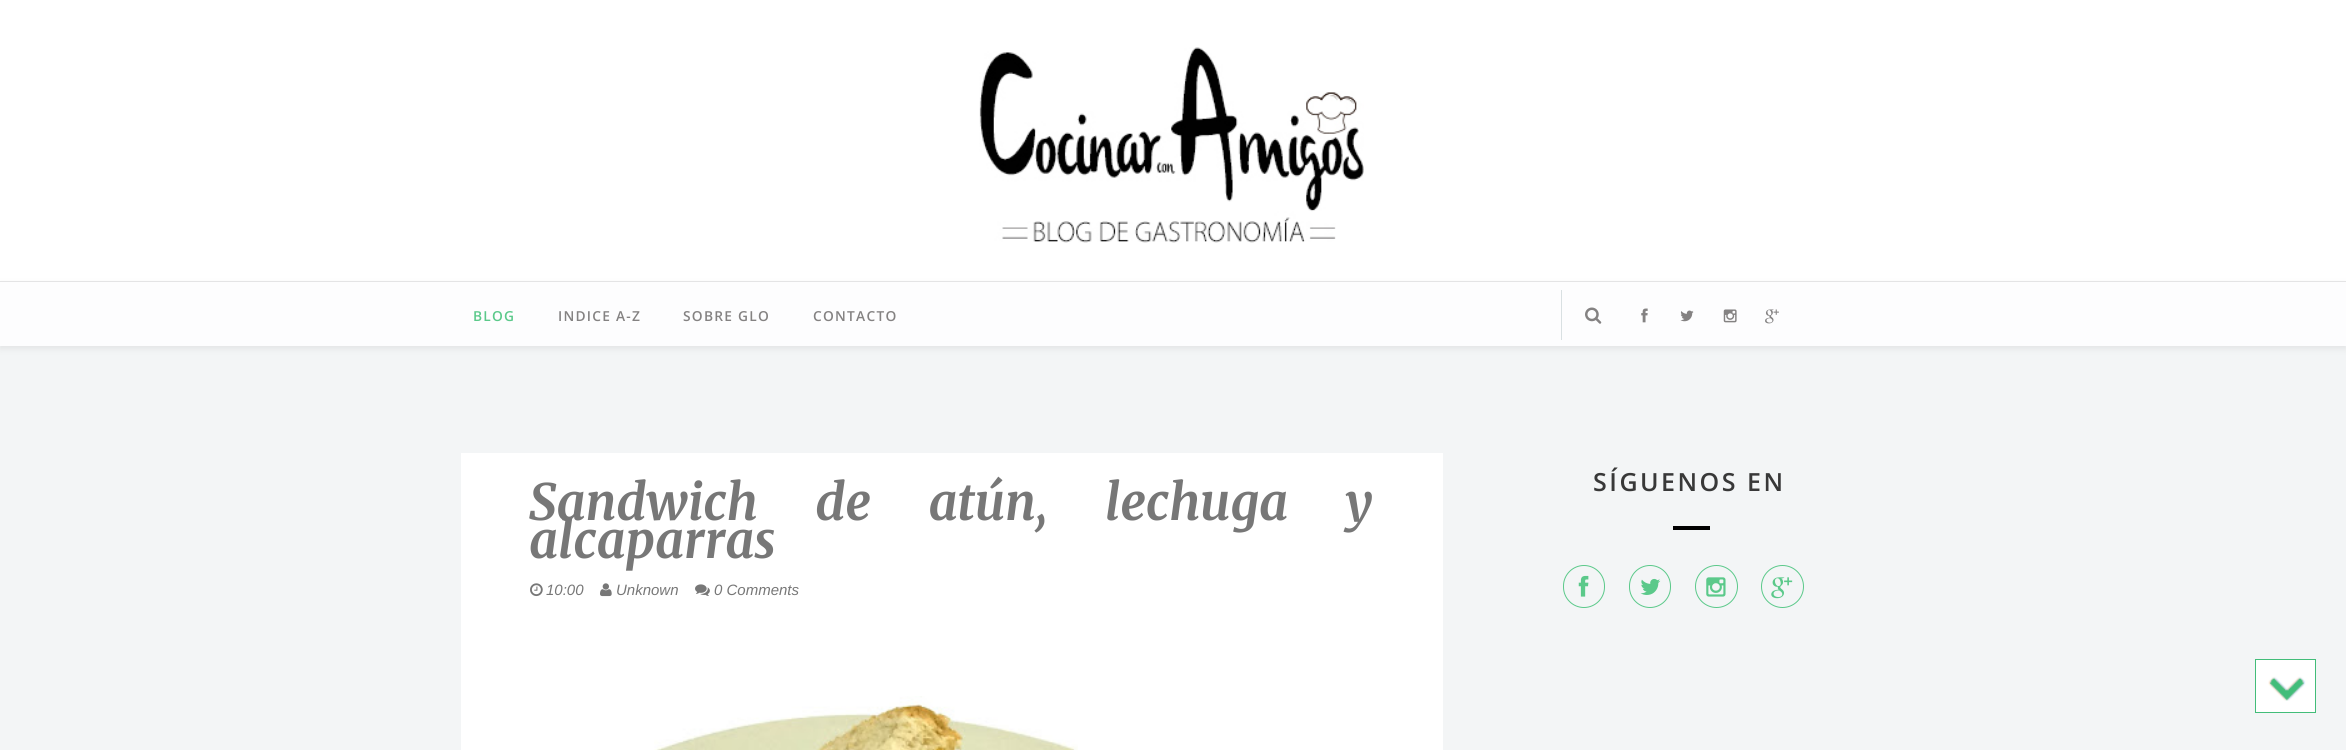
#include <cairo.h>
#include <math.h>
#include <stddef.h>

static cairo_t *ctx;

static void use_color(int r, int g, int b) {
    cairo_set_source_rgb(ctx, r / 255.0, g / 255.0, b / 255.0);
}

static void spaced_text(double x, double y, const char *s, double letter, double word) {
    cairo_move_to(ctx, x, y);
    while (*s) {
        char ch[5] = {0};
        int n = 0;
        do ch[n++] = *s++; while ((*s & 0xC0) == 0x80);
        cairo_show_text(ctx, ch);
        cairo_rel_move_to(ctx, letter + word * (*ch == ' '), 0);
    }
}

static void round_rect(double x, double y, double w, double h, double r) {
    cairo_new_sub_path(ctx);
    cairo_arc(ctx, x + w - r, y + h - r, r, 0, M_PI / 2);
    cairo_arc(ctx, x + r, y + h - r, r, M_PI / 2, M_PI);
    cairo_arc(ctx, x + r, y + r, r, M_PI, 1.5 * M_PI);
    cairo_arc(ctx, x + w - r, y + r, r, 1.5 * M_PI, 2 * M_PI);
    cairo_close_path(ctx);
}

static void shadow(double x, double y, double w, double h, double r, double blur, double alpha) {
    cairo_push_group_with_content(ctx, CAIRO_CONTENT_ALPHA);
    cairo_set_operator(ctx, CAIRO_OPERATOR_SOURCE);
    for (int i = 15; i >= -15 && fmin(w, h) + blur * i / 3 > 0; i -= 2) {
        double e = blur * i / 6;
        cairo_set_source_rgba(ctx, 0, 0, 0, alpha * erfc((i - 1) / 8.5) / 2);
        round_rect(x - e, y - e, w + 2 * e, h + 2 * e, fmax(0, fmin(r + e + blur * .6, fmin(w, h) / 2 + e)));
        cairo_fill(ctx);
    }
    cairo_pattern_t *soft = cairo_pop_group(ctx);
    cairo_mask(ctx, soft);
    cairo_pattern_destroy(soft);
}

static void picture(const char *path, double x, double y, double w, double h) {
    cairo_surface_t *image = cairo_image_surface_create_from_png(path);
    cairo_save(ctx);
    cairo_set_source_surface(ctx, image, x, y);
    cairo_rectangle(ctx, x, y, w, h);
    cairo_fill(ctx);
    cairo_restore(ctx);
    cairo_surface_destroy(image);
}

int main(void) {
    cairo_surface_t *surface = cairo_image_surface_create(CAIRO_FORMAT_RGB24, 2346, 750);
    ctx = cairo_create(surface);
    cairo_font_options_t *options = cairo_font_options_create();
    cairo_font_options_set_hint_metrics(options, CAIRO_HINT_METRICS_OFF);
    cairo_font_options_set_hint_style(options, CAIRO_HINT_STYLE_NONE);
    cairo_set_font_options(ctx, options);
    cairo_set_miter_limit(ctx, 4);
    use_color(243, 245, 246);
    cairo_paint(ctx);
    use_color(255, 255, 255);
    cairo_rectangle(ctx, 0, 0, 2346, 281);
    cairo_fill(ctx);
    picture("img1.png", 979, 47, 385, 196);
    use_color(190, 190, 190);
    shadow(0, 284, 2346, 65, 0, 3, 0.3);
    use_color(253, 253, 254);
    cairo_rectangle(ctx, 0, 282, 2346, 64);
    cairo_fill(ctx);
    use_color(228, 228, 229);
    cairo_rectangle(ctx, 0, 281, 2346, 1);
    cairo_fill(ctx);
    cairo_select_font_face(ctx, "Open Sans SemiBold", CAIRO_FONT_SLANT_NORMAL, CAIRO_FONT_WEIGHT_NORMAL);
    cairo_set_font_size(ctx, 13.75);
    use_color(91, 201, 138);
    spaced_text(473, 321, "BLOG", 1.25, 0);
    use_color(132, 130, 130);
    spaced_text(558, 321, "INDICE A-Z", 1.25, 0);
    spaced_text(683, 321, "SOBRE GLO", 1.25, 0);
    spaced_text(813, 321, "CONTACTO", 1.25, 0);
    use_color(217, 224, 226);
    cairo_rectangle(ctx, 1561, 290, 1, 50);
    cairo_fill(ctx);
    picture("img2.png", 1585, 307, 17, 17);
    picture("img3.png", 1641, 308, 7, 15);
    picture("img4.png", 1680, 310, 14, 12);
    picture("img5.png", 1723, 309, 14, 14);
    picture("img6.png", 1765, 309, 14, 15);
    use_color(255, 255, 255);
    cairo_rectangle(ctx, 461, 453, 982, 297);
    cairo_fill(ctx);
    cairo_select_font_face(ctx, "Merriweather", CAIRO_FONT_SLANT_ITALIC, CAIRO_FONT_WEIGHT_BOLD);
    cairo_set_font_size(ctx, 50);
    use_color(119, 119, 119);
    spaced_text(529, 520, "Sandwich de atún, lechuga y", 0, 46.5);
    cairo_move_to(ctx, 529, 558);
    cairo_show_text(ctx, "alcaparras");
    picture("img7.png", 530, 583, 13, 14);
    cairo_select_font_face(ctx, "Liberation Sans", CAIRO_FONT_SLANT_ITALIC, CAIRO_FONT_WEIGHT_NORMAL);
    cairo_set_font_size(ctx, 15);
    cairo_move_to(ctx, 546, 595);
    cairo_show_text(ctx, "10:00");
    picture("img8.png", 600, 583, 12, 14);
    cairo_move_to(ctx, 616, 595);
    cairo_show_text(ctx, "Unknown");
    picture("img9.png", 695, 584, 15, 12);
    cairo_move_to(ctx, 714, 595);
    cairo_show_text(ctx, "0 Comments");
    picture("img10.png", 654, 696, 424, 54);
    cairo_select_font_face(ctx, "Open Sans SemiBold", CAIRO_FONT_SLANT_NORMAL, CAIRO_FONT_WEIGHT_NORMAL);
    cairo_set_font_size(ctx, 25);
    use_color(56, 56, 56);
    spaced_text(1593, 491, "SÍGUENOS EN", 2.5, 0);
    use_color(0, 0, 0);
    cairo_rectangle(ctx, 1673, 526, 37, 4);
    cairo_fill(ctx);
    round_rect(1563.5, 565.5, 41, 42, 20.5);
    use_color(91, 201, 138);
    cairo_set_line_width(ctx, 1);
    cairo_stroke(ctx);
    picture("img11.png", 1578, 575, 11, 22);
    round_rect(1629.5, 565.5, 41, 42, 20.5);
    cairo_stroke(ctx);
    picture("img12.png", 1640, 578, 21, 17);
    cairo_arc(ctx, 1716.5, 586.5, 21, 0, 2 * M_PI);
    cairo_stroke(ctx);
    picture("img13.png", 1706, 577, 20, 20);
    cairo_arc(ctx, 1782.5, 586.5, 21, 0, 2 * M_PI);
    cairo_stroke(ctx);
    picture("img14.png", 1771, 577, 22, 22);
    picture("img15.png", 2256, 660, 59, 52);
    cairo_rectangle(ctx, 2255.5, 659.5, 60, 53);
    use_color(66, 189, 121);
    cairo_stroke(ctx);
    cairo_surface_write_to_png(surface, "result.png");
    cairo_font_options_destroy(options);
    cairo_destroy(ctx);
    cairo_surface_destroy(surface);
    return 0;
}
